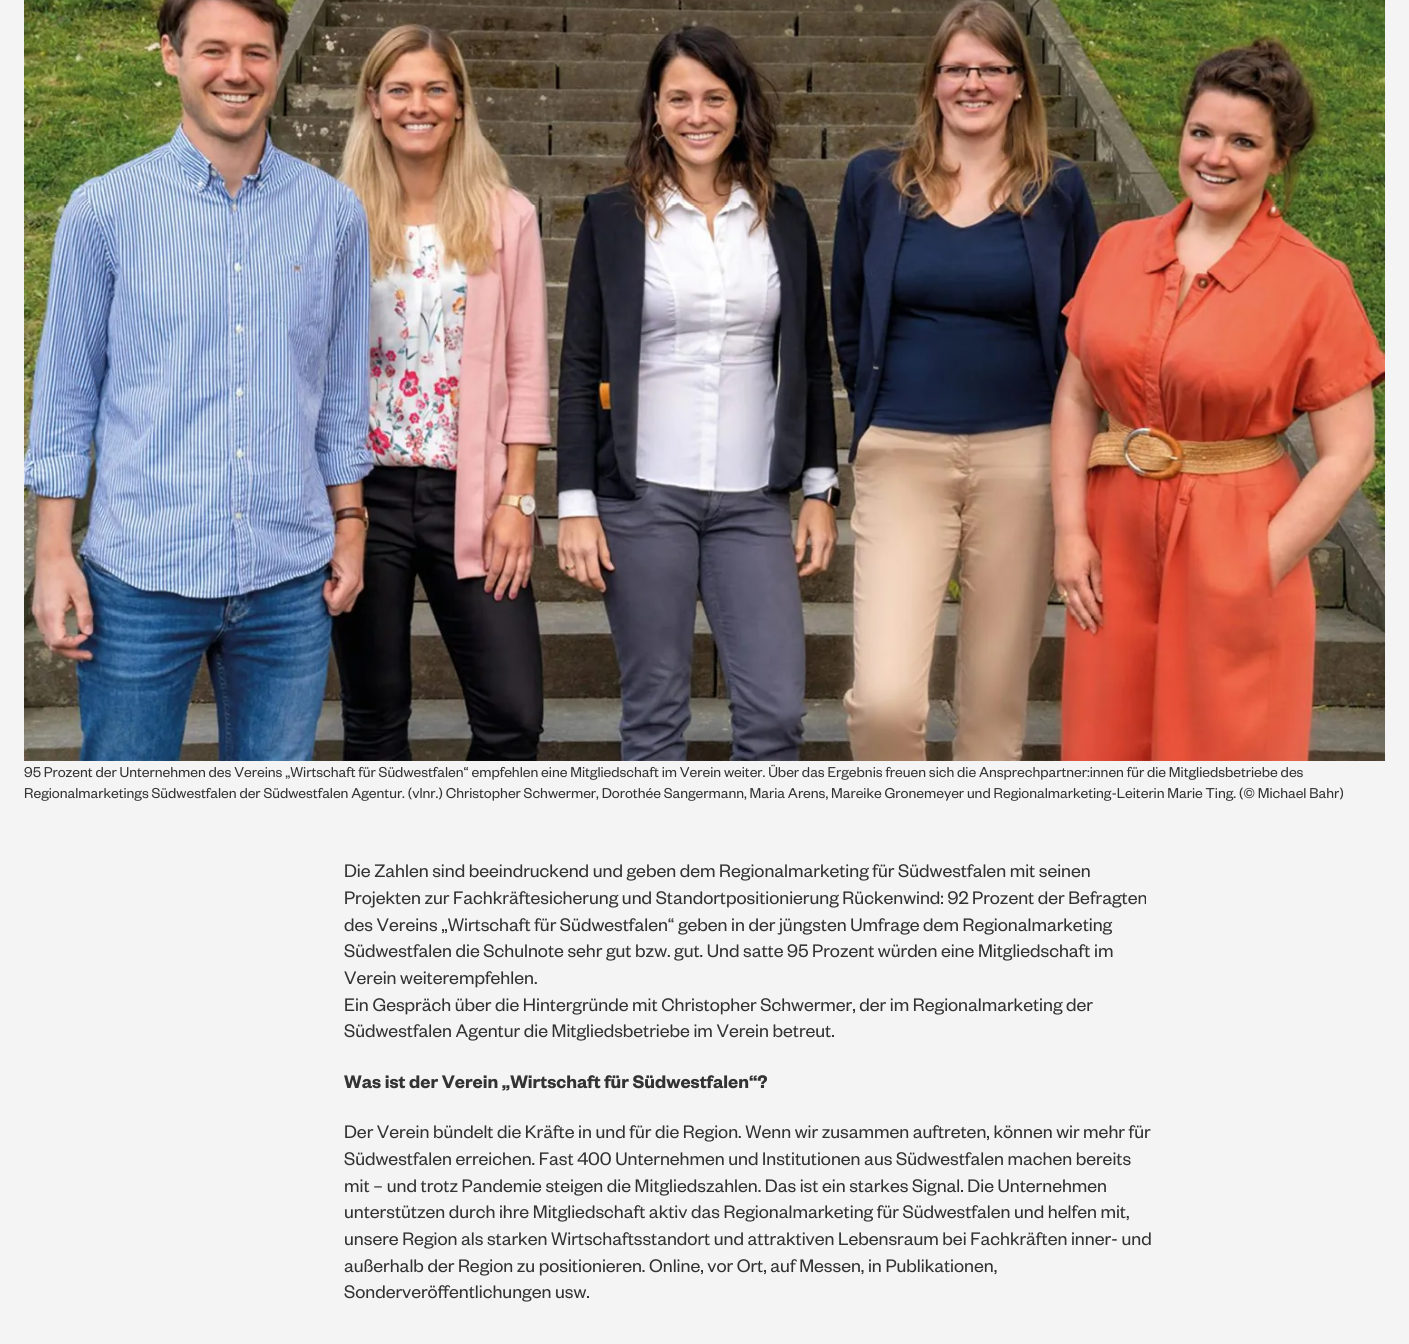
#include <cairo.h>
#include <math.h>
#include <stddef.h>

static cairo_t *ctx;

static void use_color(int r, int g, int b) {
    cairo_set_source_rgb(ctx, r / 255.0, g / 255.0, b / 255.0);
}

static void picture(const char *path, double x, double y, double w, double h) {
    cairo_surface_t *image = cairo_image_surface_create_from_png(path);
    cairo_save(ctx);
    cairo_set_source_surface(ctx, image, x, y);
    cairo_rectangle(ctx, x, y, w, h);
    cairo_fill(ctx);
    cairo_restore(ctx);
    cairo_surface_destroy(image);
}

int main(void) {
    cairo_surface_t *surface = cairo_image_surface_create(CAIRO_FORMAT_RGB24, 1409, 1344);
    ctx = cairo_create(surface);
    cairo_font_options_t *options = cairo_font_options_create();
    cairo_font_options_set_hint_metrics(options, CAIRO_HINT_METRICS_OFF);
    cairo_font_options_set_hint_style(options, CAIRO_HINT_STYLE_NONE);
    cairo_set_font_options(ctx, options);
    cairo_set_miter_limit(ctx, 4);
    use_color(244, 244, 244);
    cairo_paint(ctx);
    picture("img1.png", 24, 0, 1361, 761);
    cairo_select_font_face(ctx, "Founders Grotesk", CAIRO_FONT_SLANT_NORMAL, CAIRO_FONT_WEIGHT_NORMAL);
    cairo_set_font_size(ctx, 15.75);
    use_color(51, 51, 51);
    cairo_move_to(ctx, 24, 777);
    cairo_show_text(ctx, "95 Prozent der Unternehmen des Vereins „Wirtschaft für Südwestfalen“ empfehlen eine Mitgliedschaft im Verein weiter. Über das Ergebnis freuen sich die Ansprechpartner:innen für die Mitgliedsbetriebe des");
    cairo_move_to(ctx, 24, 798);
    cairo_show_text(ctx, "Regionalmarketings Südwestfalen der Südwestfalen Agentur. (vlnr.) Christopher Schwermer, Dorothée Sangermann, Maria Arens, Mareike Gronemeyer und Regionalmarketing-Leiterin Marie Ting. (© Michael Bahr)");
    cairo_set_font_size(ctx, 20);
    cairo_move_to(ctx, 344, 877);
    cairo_show_text(ctx, "Die Zahlen sind beeindruckend und geben dem Regionalmarketing für Südwestfalen mit seinen");
    cairo_move_to(ctx, 344, 904);
    cairo_show_text(ctx, "Projekten zur Fachkräftesicherung und Standortpositionierung Rückenwind: 92 Prozent der Befragten");
    cairo_move_to(ctx, 344, 931);
    cairo_show_text(ctx, "des Vereins „Wirtschaft für Südwestfalen“ geben in der jüngsten Umfrage dem Regionalmarketing");
    cairo_move_to(ctx, 344, 957);
    cairo_show_text(ctx, "Südwestfalen die Schulnote sehr gut bzw. gut. Und satte 95 Prozent würden eine Mitgliedschaft im");
    cairo_move_to(ctx, 344, 984);
    cairo_show_text(ctx, "Verein weiterempfehlen.");
    cairo_move_to(ctx, 344, 1011);
    cairo_show_text(ctx, "Ein Gespräch über die Hintergründe mit Christopher Schwermer, der im Regionalmarketing der");
    cairo_move_to(ctx, 344, 1037);
    cairo_show_text(ctx, "Südwestfalen Agentur die Mitgliedsbetriebe im Verein betreut.");
    cairo_select_font_face(ctx, "Founders Grotesk SemiBold", CAIRO_FONT_SLANT_NORMAL, CAIRO_FONT_WEIGHT_NORMAL);
    cairo_move_to(ctx, 344, 1088);
    cairo_show_text(ctx, "Was ist der Verein „Wirtschaft für Südwestfalen“?");
    cairo_select_font_face(ctx, "Founders Grotesk", CAIRO_FONT_SLANT_NORMAL, CAIRO_FONT_WEIGHT_NORMAL);
    cairo_move_to(ctx, 344, 1138);
    cairo_show_text(ctx, "Der Verein bündelt die Kräfte in und für die Region. Wenn wir zusammen auftreten, können wir mehr für");
    cairo_move_to(ctx, 344, 1165);
    cairo_show_text(ctx, "Südwestfalen erreichen. Fast 400 Unternehmen und Institutionen aus Südwestfalen machen bereits");
    cairo_move_to(ctx, 344, 1192);
    cairo_show_text(ctx, "mit – und trotz Pandemie steigen die Mitgliedszahlen. Das ist ein starkes Signal. Die Unternehmen");
    cairo_move_to(ctx, 344, 1218);
    cairo_show_text(ctx, "unterstützen durch ihre Mitgliedschaft aktiv das Regionalmarketing für Südwestfalen und helfen mit,");
    cairo_move_to(ctx, 344, 1245);
    cairo_show_text(ctx, "unsere Region als starken Wirtschaftsstandort und attraktiven Lebensraum bei Fachkräften inner- und");
    cairo_move_to(ctx, 344, 1272);
    cairo_show_text(ctx, "außerhalb der Region zu positionieren. Online, vor Ort, auf Messen, in Publikationen,");
    cairo_move_to(ctx, 344, 1298);
    cairo_show_text(ctx, "Sonderveröffentlichungen usw.");
    cairo_surface_write_to_png(surface, "result.png");
    cairo_font_options_destroy(options);
    cairo_destroy(ctx);
    cairo_surface_destroy(surface);
    return 0;
}
